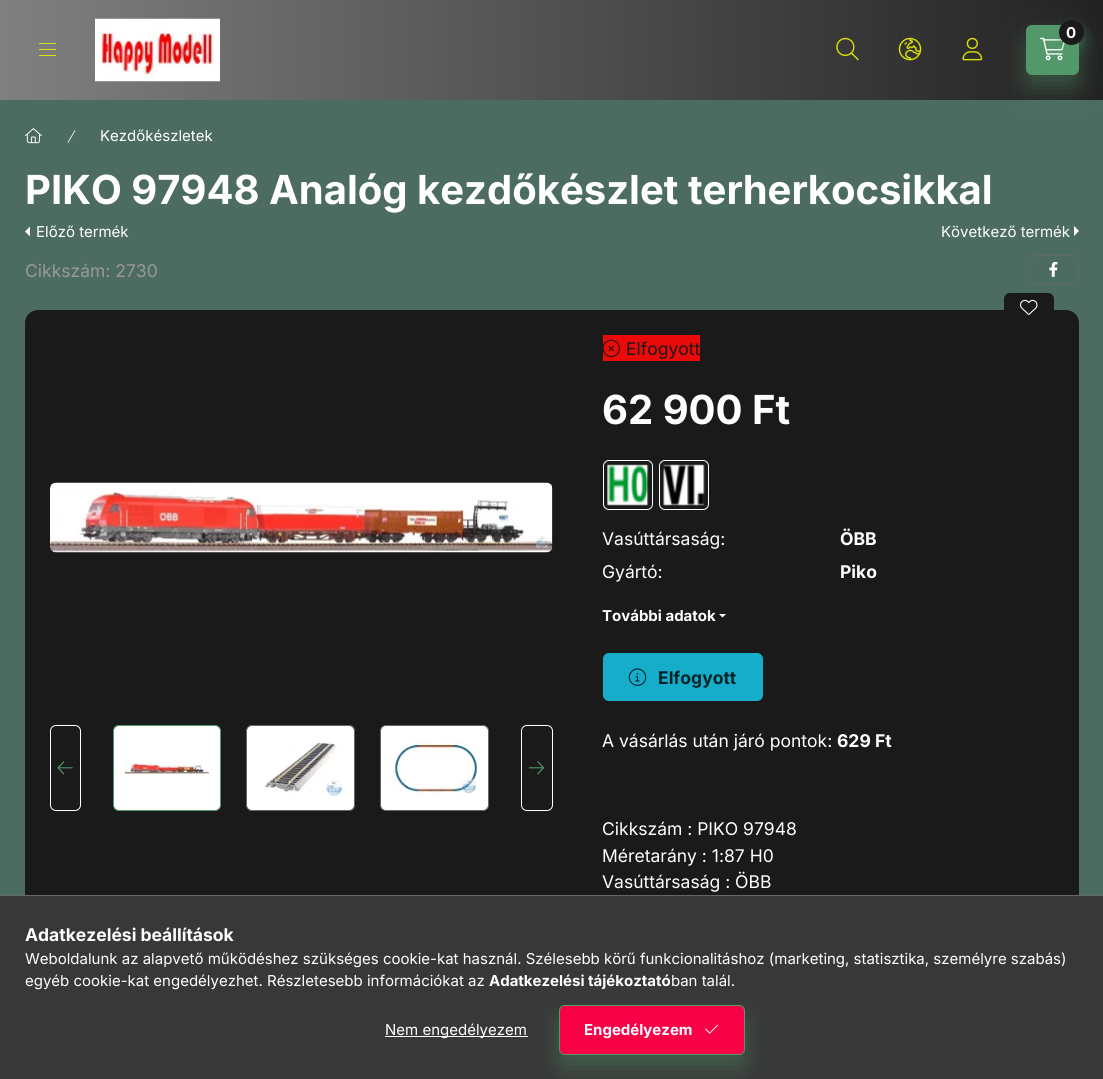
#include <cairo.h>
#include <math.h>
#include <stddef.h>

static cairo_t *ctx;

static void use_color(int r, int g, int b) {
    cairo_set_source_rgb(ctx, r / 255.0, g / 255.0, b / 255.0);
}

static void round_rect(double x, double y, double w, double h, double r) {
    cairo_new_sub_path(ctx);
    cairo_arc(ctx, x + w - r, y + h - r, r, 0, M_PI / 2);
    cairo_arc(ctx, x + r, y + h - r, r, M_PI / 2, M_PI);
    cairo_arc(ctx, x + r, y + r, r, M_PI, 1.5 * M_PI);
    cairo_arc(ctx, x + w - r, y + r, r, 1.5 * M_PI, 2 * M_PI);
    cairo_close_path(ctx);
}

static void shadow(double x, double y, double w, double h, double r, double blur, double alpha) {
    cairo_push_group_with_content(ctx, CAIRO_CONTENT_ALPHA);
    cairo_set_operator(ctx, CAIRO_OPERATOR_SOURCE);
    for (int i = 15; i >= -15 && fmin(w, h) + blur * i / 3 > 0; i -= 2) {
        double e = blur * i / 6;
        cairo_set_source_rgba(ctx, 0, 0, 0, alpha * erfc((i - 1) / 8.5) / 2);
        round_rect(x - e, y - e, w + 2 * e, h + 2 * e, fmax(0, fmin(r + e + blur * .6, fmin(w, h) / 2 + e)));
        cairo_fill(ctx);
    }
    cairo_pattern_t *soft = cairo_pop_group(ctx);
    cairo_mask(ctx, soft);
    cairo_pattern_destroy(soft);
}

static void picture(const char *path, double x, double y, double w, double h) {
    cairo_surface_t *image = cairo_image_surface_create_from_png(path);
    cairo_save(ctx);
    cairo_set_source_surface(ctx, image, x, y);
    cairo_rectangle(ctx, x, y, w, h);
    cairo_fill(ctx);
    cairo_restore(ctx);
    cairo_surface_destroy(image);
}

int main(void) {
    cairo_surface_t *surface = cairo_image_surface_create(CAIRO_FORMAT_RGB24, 1103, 1079);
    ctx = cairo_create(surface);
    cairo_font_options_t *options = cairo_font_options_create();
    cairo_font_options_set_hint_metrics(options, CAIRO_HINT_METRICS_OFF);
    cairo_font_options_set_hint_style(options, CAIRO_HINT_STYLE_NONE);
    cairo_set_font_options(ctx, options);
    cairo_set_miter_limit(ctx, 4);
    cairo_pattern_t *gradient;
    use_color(77, 108, 97);
    cairo_paint(ctx);
    gradient = cairo_pattern_create_linear(0, 540, 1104, 540);
    cairo_pattern_add_color_stop_rgba(gradient, 0, 0.506, 0.502, 0.502, 1);
    cairo_pattern_add_color_stop_rgba(gradient, 1, 0.133, 0.133, 0.133, 1);
    cairo_set_source(ctx, gradient);
    cairo_pattern_destroy(gradient);
    cairo_rectangle(ctx, 0, 0, 1103, 100);
    cairo_fill(ctx);
    use_color(218, 225, 5);
    cairo_rectangle(ctx, 39, 43, 17, 1);
    cairo_fill(ctx);
    cairo_rectangle(ctx, 39, 49, 17, 1);
    cairo_fill(ctx);
    cairo_rectangle(ctx, 39, 55, 17, 1);
    cairo_fill(ctx);
    picture("img1.png", 95, 18, 125, 64);
    use_color(83, 152, 106);
    shadow(1026, 38, 53, 50, 6, 12.5, 0.4);
    use_color(83, 152, 106);
    round_rect(1026, 25, 53, 50, 6);
    cairo_fill(ctx);
    picture("img2.png", 1040, 37, 25, 24);
    use_color(83, 152, 106);
    shadow(1059, 26, 25, 25, 12.5, 6, 0.4);
    use_color(26, 26, 26);
    cairo_arc(ctx, 1071.5, 32.5, 12.5, 0, 2 * M_PI);
    cairo_fill(ctx);
    cairo_select_font_face(ctx, "Inter", CAIRO_FONT_SLANT_NORMAL, CAIRO_FONT_WEIGHT_BOLD);
    cairo_set_font_size(ctx, 15);
    use_color(255, 255, 255);
    cairo_move_to(ctx, 1066, 38);
    cairo_show_text(ctx, "0");
    picture("img3.png", 836, 37, 23, 24);
    picture("img4.png", 898, 37, 24, 24);
    picture("img5.png", 962, 37, 21, 24);
    picture("img6.png", 25, 128, 17, 16);
    picture("img7.png", 67, 130, 9, 13);
    cairo_select_font_face(ctx, "Inter", CAIRO_FONT_SLANT_NORMAL, CAIRO_FONT_WEIGHT_NORMAL);
    cairo_move_to(ctx, 100, 141);
    cairo_show_text(ctx, "Kezdőkészletek");
    cairo_select_font_face(ctx, "Inter", CAIRO_FONT_SLANT_NORMAL, CAIRO_FONT_WEIGHT_BOLD);
    cairo_set_font_size(ctx, 40);
    cairo_move_to(ctx, 25, 204);
    cairo_show_text(ctx, "PIKO 97948 Analóg kezdőkészlet terherkocsikkal");
    cairo_new_path(ctx);
    cairo_move_to(ctx, 30, 236.5);
    cairo_line_to(ctx, 30, 226.5);
    cairo_line_to(ctx, 25, 231.5);
    cairo_close_path(ctx);
    cairo_fill(ctx);
    cairo_select_font_face(ctx, "Inter", CAIRO_FONT_SLANT_NORMAL, CAIRO_FONT_WEIGHT_NORMAL);
    cairo_set_font_size(ctx, 15);
    cairo_move_to(ctx, 36, 237);
    cairo_show_text(ctx, "Előző termék");
    cairo_move_to(ctx, 941, 237);
    cairo_show_text(ctx, "Következő termék");
    cairo_new_path(ctx);
    cairo_move_to(ctx, 1074, 236);
    cairo_line_to(ctx, 1074, 226);
    cairo_line_to(ctx, 1079, 231);
    cairo_close_path(ctx);
    cairo_fill(ctx);
    cairo_set_font_size(ctx, 17.5);
    use_color(153, 153, 153);
    cairo_move_to(ctx, 25, 277);
    cairo_show_text(ctx, "Cikkszám: 2730");
    round_rect(1029.5, 255.5, 49, 29, 5.5);
    use_color(102, 102, 102);
    cairo_set_line_width(ctx, 1);
    cairo_stroke(ctx);
    picture("img8.png", 1049, 261, 9, 16);
    use_color(26, 26, 26);
    round_rect(25, 310, 1054, 691, 13);
    cairo_fill(ctx);
    round_rect(1004, 293, 50, 30, 6);
    cairo_fill(ctx);
    picture("img9.png", 1020, 299, 18, 16);
    picture("img10.png", 50, 482, 503, 71);
    round_rect(50.5, 725.5, 30, 85, 5.5);
    use_color(255, 255, 255);
    cairo_stroke(ctx);
    picture("img11.png", 57, 761, 16, 14);
    round_rect(113.5, 725.5, 107, 85, 5.5);
    cairo_fill_preserve(ctx);
    use_color(83, 152, 106);
    cairo_stroke(ctx);
    picture("img12.png", 125, 762, 84, 12);
    use_color(255, 255, 255);
    round_rect(246.5, 725.5, 108, 85, 5.5);
    cairo_fill_preserve(ctx);
    use_color(102, 102, 102);
    cairo_stroke(ctx);
    picture("img13.png", 264, 740, 79, 57);
    use_color(255, 255, 255);
    round_rect(380.5, 725.5, 108, 85, 5.5);
    cairo_fill_preserve(ctx);
    use_color(102, 102, 102);
    cairo_stroke(ctx);
    picture("img14.png", 393, 742, 84, 52);
    round_rect(521.5, 725.5, 31, 85, 5.5);
    use_color(255, 255, 255);
    cairo_stroke(ctx);
    picture("img15.png", 528, 761, 16, 14);
    use_color(234, 10, 10);
    cairo_rectangle(ctx, 603, 335, 97, 26);
    cairo_fill(ctx);
    picture("img16.png", 603, 339, 17, 19);
    use_color(26, 24, 24);
    cairo_move_to(ctx, 626, 355);
    cairo_show_text(ctx, "Elfogyott");
    cairo_select_font_face(ctx, "Inter", CAIRO_FONT_SLANT_NORMAL, CAIRO_FONT_WEIGHT_BOLD);
    cairo_set_font_size(ctx, 40);
    use_color(255, 255, 255);
    cairo_move_to(ctx, 602, 424);
    cairo_show_text(ctx, "62 900 Ft");
    round_rect(603.5, 460.5, 49, 49, 5.5);
    cairo_stroke(ctx);
    picture("img17.png", 607, 464, 42, 42);
    round_rect(659.5, 460.5, 49, 49, 5.5);
    cairo_stroke(ctx);
    picture("img18.png", 663, 464, 42, 42);
    cairo_select_font_face(ctx, "Inter", CAIRO_FONT_SLANT_NORMAL, CAIRO_FONT_WEIGHT_NORMAL);
    cairo_set_font_size(ctx, 17.5);
    cairo_move_to(ctx, 602, 545);
    cairo_show_text(ctx, "Vasúttársaság:");
    cairo_select_font_face(ctx, "Inter", CAIRO_FONT_SLANT_NORMAL, CAIRO_FONT_WEIGHT_BOLD);
    cairo_move_to(ctx, 840, 545);
    cairo_show_text(ctx, "ÖBB");
    cairo_select_font_face(ctx, "Inter", CAIRO_FONT_SLANT_NORMAL, CAIRO_FONT_WEIGHT_NORMAL);
    cairo_move_to(ctx, 602, 578);
    cairo_show_text(ctx, "Gyártó:");
    cairo_select_font_face(ctx, "Inter", CAIRO_FONT_SLANT_NORMAL, CAIRO_FONT_WEIGHT_BOLD);
    cairo_move_to(ctx, 840, 578);
    cairo_show_text(ctx, "Piko");
    cairo_set_font_size(ctx, 15);
    cairo_move_to(ctx, 602, 621);
    cairo_show_text(ctx, "További adatok");
    cairo_new_path(ctx);
    cairo_move_to(ctx, 719, 614);
    cairo_line_to(ctx, 726, 614);
    cairo_line_to(ctx, 722.5, 617.5);
    cairo_close_path(ctx);
    cairo_fill(ctx);
    use_color(22, 173, 202);
    round_rect(603.5, 653.5, 159, 47, 5.5);
    cairo_fill_preserve(ctx);
    cairo_stroke(ctx);
    picture("img19.png", 628, 668, 19, 18);
    cairo_set_font_size(ctx, 17.5);
    use_color(4, 35, 40);
    cairo_move_to(ctx, 658, 684);
    cairo_show_text(ctx, "Elfogyott");
    cairo_select_font_face(ctx, "Inter", CAIRO_FONT_SLANT_NORMAL, CAIRO_FONT_WEIGHT_NORMAL);
    use_color(255, 255, 255);
    cairo_move_to(ctx, 602, 747);
    cairo_show_text(ctx, "A vásárlás után járó pontok:");
    cairo_select_font_face(ctx, "Inter", CAIRO_FONT_SLANT_NORMAL, CAIRO_FONT_WEIGHT_BOLD);
    cairo_move_to(ctx, 837, 747);
    cairo_show_text(ctx, "629 Ft");
    cairo_select_font_face(ctx, "Inter", CAIRO_FONT_SLANT_NORMAL, CAIRO_FONT_WEIGHT_NORMAL);
    cairo_move_to(ctx, 602, 835);
    cairo_show_text(ctx, "Cikkszám : PIKO 97948");
    cairo_move_to(ctx, 602, 862);
    cairo_show_text(ctx, "Méretarány : 1:87 H0");
    cairo_move_to(ctx, 602, 888);
    cairo_show_text(ctx, "Vasúttársaság : ÖBB");
    use_color(56, 56, 56);
    cairo_rectangle(ctx, 0, 896, 1103, 183);
    cairo_fill(ctx);
    use_color(102, 102, 102);
    cairo_rectangle(ctx, 0, 895, 1103, 1);
    cairo_fill(ctx);
    cairo_select_font_face(ctx, "Inter", CAIRO_FONT_SLANT_NORMAL, CAIRO_FONT_WEIGHT_BOLD);
    use_color(255, 255, 255);
    cairo_move_to(ctx, 25, 941);
    cairo_show_text(ctx, "Adatkezelési beállítások");
    cairo_select_font_face(ctx, "Inter", CAIRO_FONT_SLANT_NORMAL, CAIRO_FONT_WEIGHT_NORMAL);
    cairo_set_font_size(ctx, 15);
    cairo_move_to(ctx, 25, 964);
    cairo_show_text(ctx, "Weboldalunk az alapvető működéshez szükséges cookie-kat használ. Szélesebb körű funkcionalitáshoz (marketing, statisztika, személyre szabás)");
    cairo_move_to(ctx, 25, 986);
    cairo_show_text(ctx, "egyéb cookie-kat engedélyezhet. Részletesebb információkat az");
    cairo_select_font_face(ctx, "Inter", CAIRO_FONT_SLANT_NORMAL, CAIRO_FONT_WEIGHT_BOLD);
    cairo_move_to(ctx, 489, 986);
    cairo_show_text(ctx, "Adatkezelési tájékoztató");
    cairo_select_font_face(ctx, "Inter", CAIRO_FONT_SLANT_NORMAL, CAIRO_FONT_WEIGHT_NORMAL);
    cairo_move_to(ctx, 671, 986);
    cairo_show_text(ctx, "ban talál.");
    cairo_rectangle(ctx, 385, 1036, 143, 1);
    cairo_fill(ctx);
    cairo_move_to(ctx, 385, 1035);
    cairo_show_text(ctx, "Nem engedélyezem");
    use_color(83, 152, 106);
    shadow(559, 1018, 186, 50, 6, 12.5, 0.4);
    use_color(247, 2, 71);
    round_rect(559.5, 1005.5, 185, 49, 5.5);
    cairo_fill_preserve(ctx);
    use_color(83, 152, 106);
    cairo_stroke(ctx);
    cairo_select_font_face(ctx, "Inter", CAIRO_FONT_SLANT_NORMAL, CAIRO_FONT_WEIGHT_BOLD);
    use_color(255, 255, 255);
    cairo_move_to(ctx, 584, 1035);
    cairo_show_text(ctx, "Engedélyezem");
    picture("img20.png", 705, 1024, 14, 10);
    cairo_surface_write_to_png(surface, "result.png");
    cairo_font_options_destroy(options);
    cairo_destroy(ctx);
    cairo_surface_destroy(surface);
    return 0;
}
